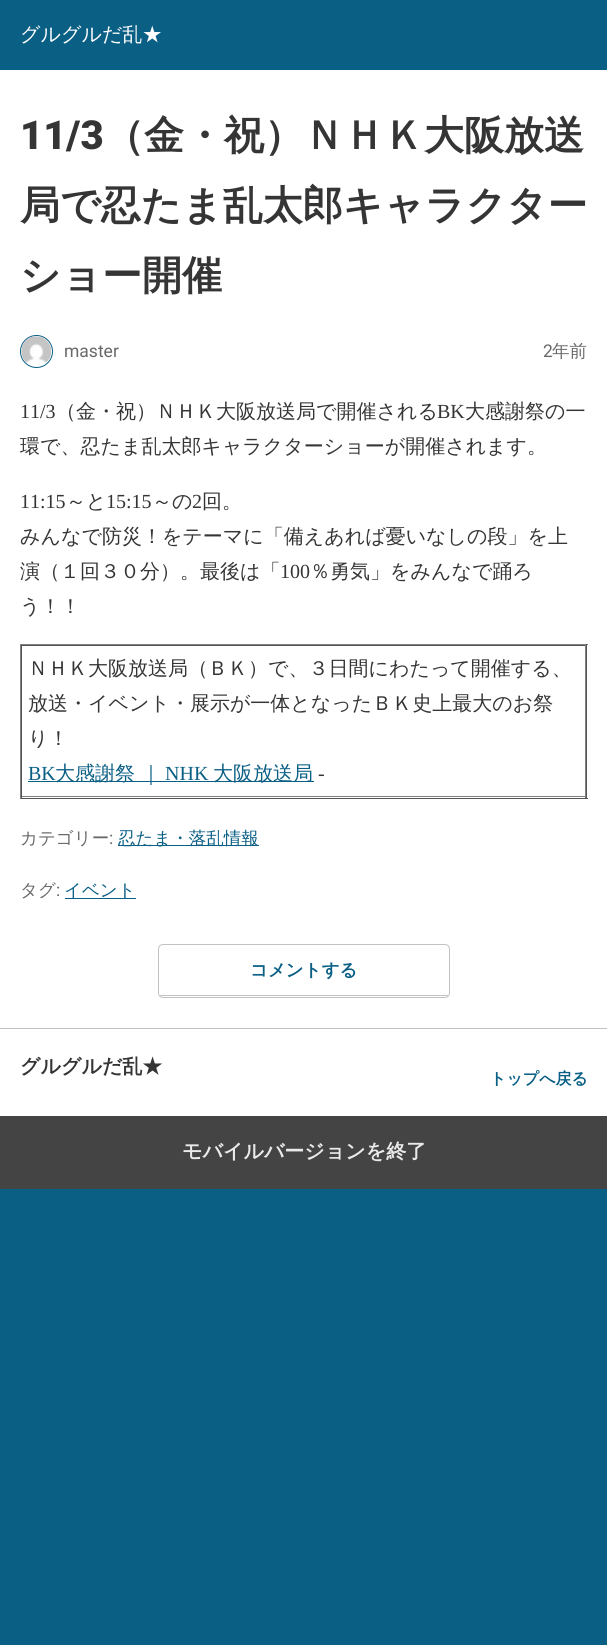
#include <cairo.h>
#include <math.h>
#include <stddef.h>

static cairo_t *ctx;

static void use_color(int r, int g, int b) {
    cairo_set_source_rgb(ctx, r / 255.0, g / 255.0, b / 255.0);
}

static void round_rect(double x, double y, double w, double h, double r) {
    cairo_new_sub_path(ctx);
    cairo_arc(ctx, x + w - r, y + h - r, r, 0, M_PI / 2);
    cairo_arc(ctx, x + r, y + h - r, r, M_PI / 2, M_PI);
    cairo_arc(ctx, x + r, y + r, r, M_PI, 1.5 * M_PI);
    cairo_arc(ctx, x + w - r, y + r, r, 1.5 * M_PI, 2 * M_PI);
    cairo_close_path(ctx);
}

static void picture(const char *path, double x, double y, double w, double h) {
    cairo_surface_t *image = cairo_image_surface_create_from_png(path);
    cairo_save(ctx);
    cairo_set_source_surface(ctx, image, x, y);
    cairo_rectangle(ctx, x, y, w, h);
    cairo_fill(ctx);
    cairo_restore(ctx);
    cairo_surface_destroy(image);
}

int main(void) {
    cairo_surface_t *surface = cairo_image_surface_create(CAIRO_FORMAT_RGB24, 607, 1645);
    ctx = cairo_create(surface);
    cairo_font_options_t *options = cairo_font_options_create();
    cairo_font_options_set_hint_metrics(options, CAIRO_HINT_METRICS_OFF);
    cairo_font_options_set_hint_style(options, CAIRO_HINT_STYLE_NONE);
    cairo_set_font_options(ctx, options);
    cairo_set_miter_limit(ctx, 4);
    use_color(10, 95, 133);
    cairo_paint(ctx);
    use_color(255, 255, 255);
    cairo_rectangle(ctx, 0, 70, 607, 1046);
    cairo_fill(ctx);
    cairo_select_font_face(ctx, "WenQuanYi Zen Hei Medium", CAIRO_FONT_SLANT_NORMAL, CAIRO_FONT_WEIGHT_NORMAL);
    cairo_set_font_size(ctx, 20);
    cairo_move_to(ctx, 20, 41);
    cairo_show_text(ctx, "グルグルだ乱★");
    cairo_select_font_face(ctx, "Roboto Black", CAIRO_FONT_SLANT_NORMAL, CAIRO_FONT_WEIGHT_NORMAL);
    cairo_set_font_size(ctx, 40);
    use_color(53, 53, 53);
    cairo_move_to(ctx, 20, 149);
    cairo_show_text(ctx, "11/3");
    cairo_select_font_face(ctx, "WenQuanYi Zen Hei", CAIRO_FONT_SLANT_NORMAL, CAIRO_FONT_WEIGHT_BOLD);
    cairo_move_to(ctx, 104, 149);
    cairo_show_text(ctx, "（金・祝）ＮＨＫ大阪放送");
    cairo_move_to(ctx, 20, 219);
    cairo_show_text(ctx, "局で忍たま乱太郎キャラクター");
    cairo_move_to(ctx, 20, 289);
    cairo_show_text(ctx, "ショー開催");
    cairo_new_path(ctx);
    cairo_arc(ctx, 36.5, 351.5, 16, 0, 2 * M_PI);
    use_color(10, 95, 133);
    cairo_set_line_width(ctx, 1);
    cairo_stroke(ctx);
    picture("img1.png", 21, 336, 30, 29);
    cairo_select_font_face(ctx, "Roboto", CAIRO_FONT_SLANT_NORMAL, CAIRO_FONT_WEIGHT_NORMAL);
    cairo_set_font_size(ctx, 17.5);
    use_color(105, 105, 105);
    cairo_move_to(ctx, 64, 357);
    cairo_show_text(ctx, "master");
    cairo_move_to(ctx, 543, 357);
    cairo_show_text(ctx, "2");
    cairo_select_font_face(ctx, "WenQuanYi Zen Hei Medium", CAIRO_FONT_SLANT_NORMAL, CAIRO_FONT_WEIGHT_NORMAL);
    cairo_move_to(ctx, 552, 357);
    cairo_show_text(ctx, "年前");
    cairo_select_font_face(ctx, "Liberation Serif", CAIRO_FONT_SLANT_NORMAL, CAIRO_FONT_WEIGHT_NORMAL);
    cairo_set_font_size(ctx, 20);
    use_color(53, 53, 53);
    cairo_move_to(ctx, 20, 418);
    cairo_show_text(ctx, "11/3");
    cairo_select_font_face(ctx, "WenQuanYi Zen Hei Medium", CAIRO_FONT_SLANT_NORMAL, CAIRO_FONT_WEIGHT_NORMAL);
    cairo_move_to(ctx, 56, 418);
    cairo_show_text(ctx, "（金・祝）ＮＨＫ大阪放送局で開催される");
    cairo_select_font_face(ctx, "Liberation Serif", CAIRO_FONT_SLANT_NORMAL, CAIRO_FONT_WEIGHT_NORMAL);
    cairo_move_to(ctx, 437, 418);
    cairo_show_text(ctx, "BK");
    cairo_select_font_face(ctx, "WenQuanYi Zen Hei Medium", CAIRO_FONT_SLANT_NORMAL, CAIRO_FONT_WEIGHT_NORMAL);
    cairo_move_to(ctx, 465, 418);
    cairo_show_text(ctx, "大感謝祭の一");
    cairo_move_to(ctx, 20, 453);
    cairo_show_text(ctx, "環で、忍たま乱太郎キャラクターショーが開催されます。");
    cairo_select_font_face(ctx, "Liberation Serif", CAIRO_FONT_SLANT_NORMAL, CAIRO_FONT_WEIGHT_NORMAL);
    cairo_move_to(ctx, 20, 508);
    cairo_show_text(ctx, "11:15");
    cairo_select_font_face(ctx, "WenQuanYi Zen Hei Medium", CAIRO_FONT_SLANT_NORMAL, CAIRO_FONT_WEIGHT_NORMAL);
    cairo_move_to(ctx, 66, 508);
    cairo_show_text(ctx, "～と");
    cairo_select_font_face(ctx, "Liberation Serif", CAIRO_FONT_SLANT_NORMAL, CAIRO_FONT_WEIGHT_NORMAL);
    cairo_move_to(ctx, 106, 508);
    cairo_show_text(ctx, "15:15");
    cairo_select_font_face(ctx, "WenQuanYi Zen Hei Medium", CAIRO_FONT_SLANT_NORMAL, CAIRO_FONT_WEIGHT_NORMAL);
    cairo_move_to(ctx, 152, 508);
    cairo_show_text(ctx, "～の");
    cairo_select_font_face(ctx, "Liberation Serif", CAIRO_FONT_SLANT_NORMAL, CAIRO_FONT_WEIGHT_NORMAL);
    cairo_move_to(ctx, 192, 508);
    cairo_show_text(ctx, "2");
    cairo_select_font_face(ctx, "WenQuanYi Zen Hei Medium", CAIRO_FONT_SLANT_NORMAL, CAIRO_FONT_WEIGHT_NORMAL);
    cairo_move_to(ctx, 202, 508);
    cairo_show_text(ctx, "回。");
    cairo_move_to(ctx, 20, 543);
    cairo_show_text(ctx, "みんなで防災！をテーマに「備えあれば憂いなしの段」を上");
    cairo_move_to(ctx, 20, 578);
    cairo_show_text(ctx, "演（１回３０分）。最後は「");
    cairo_select_font_face(ctx, "Liberation Serif", CAIRO_FONT_SLANT_NORMAL, CAIRO_FONT_WEIGHT_NORMAL);
    cairo_move_to(ctx, 280, 578);
    cairo_show_text(ctx, "100");
    cairo_select_font_face(ctx, "WenQuanYi Zen Hei Medium", CAIRO_FONT_SLANT_NORMAL, CAIRO_FONT_WEIGHT_NORMAL);
    cairo_move_to(ctx, 310, 578);
    cairo_show_text(ctx, "％勇気」をみんなで踊ろ");
    cairo_move_to(ctx, 20, 613);
    cairo_show_text(ctx, "う！！");
    use_color(128, 128, 128);
    cairo_rectangle(ctx, 20, 644, 568, 1);
    cairo_fill(ctx);
    use_color(85, 85, 85);
    cairo_rectangle(ctx, 586, 644, 1, 155);
    cairo_fill(ctx);
    cairo_rectangle(ctx, 20, 798, 568, 1);
    cairo_fill(ctx);
    use_color(128, 128, 128);
    cairo_rectangle(ctx, 20, 644, 1, 155);
    cairo_fill(ctx);
    use_color(85, 85, 85);
    cairo_rectangle(ctx, 21, 645, 565, 1);
    cairo_fill(ctx);
    use_color(128, 128, 128);
    cairo_rectangle(ctx, 585, 645, 1, 153);
    cairo_fill(ctx);
    cairo_rectangle(ctx, 21, 796, 565, 1);
    cairo_fill(ctx);
    use_color(85, 85, 85);
    cairo_rectangle(ctx, 21, 645, 1, 153);
    cairo_fill(ctx);
    use_color(53, 53, 53);
    cairo_move_to(ctx, 28, 675);
    cairo_show_text(ctx, "ＮＨＫ大阪放送局（ＢＫ）で、３日間にわたって開催する、");
    cairo_move_to(ctx, 28, 710);
    cairo_show_text(ctx, "放送・イベント・展示が一体となったＢＫ史上最大のお祭");
    cairo_move_to(ctx, 28, 745);
    cairo_show_text(ctx, "り！");
    cairo_select_font_face(ctx, "Liberation Serif", CAIRO_FONT_SLANT_NORMAL, CAIRO_FONT_WEIGHT_NORMAL);
    use_color(10, 95, 133);
    cairo_move_to(ctx, 28, 780);
    cairo_show_text(ctx, "BK");
    cairo_rectangle(ctx, 28, 781, 286, 1);
    cairo_fill(ctx);
    cairo_select_font_face(ctx, "WenQuanYi Zen Hei Medium", CAIRO_FONT_SLANT_NORMAL, CAIRO_FONT_WEIGHT_NORMAL);
    cairo_move_to(ctx, 55, 780);
    cairo_show_text(ctx, "大感謝祭 ｜");
    cairo_select_font_face(ctx, "Liberation Serif", CAIRO_FONT_SLANT_NORMAL, CAIRO_FONT_WEIGHT_NORMAL);
    cairo_move_to(ctx, 165, 780);
    cairo_show_text(ctx, "NHK");
    cairo_select_font_face(ctx, "WenQuanYi Zen Hei Medium", CAIRO_FONT_SLANT_NORMAL, CAIRO_FONT_WEIGHT_NORMAL);
    cairo_move_to(ctx, 213, 780);
    cairo_show_text(ctx, "大阪放送局");
    cairo_select_font_face(ctx, "Liberation Serif", CAIRO_FONT_SLANT_NORMAL, CAIRO_FONT_WEIGHT_NORMAL);
    use_color(53, 53, 53);
    cairo_move_to(ctx, 318, 780);
    cairo_show_text(ctx, "-");
    cairo_select_font_face(ctx, "WenQuanYi Zen Hei Medium", CAIRO_FONT_SLANT_NORMAL, CAIRO_FONT_WEIGHT_NORMAL);
    cairo_set_font_size(ctx, 17.5);
    use_color(105, 105, 105);
    cairo_move_to(ctx, 20, 844);
    cairo_show_text(ctx, "カテゴリー");
    cairo_select_font_face(ctx, "Roboto", CAIRO_FONT_SLANT_NORMAL, CAIRO_FONT_WEIGHT_NORMAL);
    cairo_move_to(ctx, 109, 844);
    cairo_show_text(ctx, ":");
    use_color(10, 95, 133);
    cairo_rectangle(ctx, 118, 845, 141, 1);
    cairo_fill(ctx);
    cairo_select_font_face(ctx, "WenQuanYi Zen Hei Medium", CAIRO_FONT_SLANT_NORMAL, CAIRO_FONT_WEIGHT_NORMAL);
    cairo_move_to(ctx, 118, 844);
    cairo_show_text(ctx, "忍たま・落乱情報");
    use_color(105, 105, 105);
    cairo_move_to(ctx, 20, 896);
    cairo_show_text(ctx, "タグ");
    cairo_select_font_face(ctx, "Roboto", CAIRO_FONT_SLANT_NORMAL, CAIRO_FONT_WEIGHT_NORMAL);
    cairo_move_to(ctx, 56, 896);
    cairo_show_text(ctx, ":");
    use_color(10, 95, 133);
    cairo_rectangle(ctx, 65, 898, 71, 1);
    cairo_fill(ctx);
    cairo_select_font_face(ctx, "WenQuanYi Zen Hei Medium", CAIRO_FONT_SLANT_NORMAL, CAIRO_FONT_WEIGHT_NORMAL);
    cairo_move_to(ctx, 64, 896);
    cairo_show_text(ctx, "イベント");
    round_rect(158.5, 944.5, 291, 53, 4.5);
    use_color(194, 194, 194);
    cairo_stroke(ctx);
    cairo_rectangle(ctx, 160, 995, 288, 1);
    cairo_fill(ctx);
    cairo_select_font_face(ctx, "WenQuanYi Zen Hei", CAIRO_FONT_SLANT_NORMAL, CAIRO_FONT_WEIGHT_BOLD);
    use_color(10, 95, 133);
    cairo_move_to(ctx, 250, 976);
    cairo_show_text(ctx, "コメントする");
    use_color(194, 194, 194);
    cairo_rectangle(ctx, 0, 1028, 607, 1);
    cairo_fill(ctx);
    cairo_set_font_size(ctx, 20);
    use_color(53, 53, 53);
    cairo_move_to(ctx, 20, 1073);
    cairo_show_text(ctx, "グルグルだ乱★");
    cairo_set_font_size(ctx, 16);
    use_color(10, 95, 133);
    cairo_move_to(ctx, 490, 1084);
    cairo_show_text(ctx, "トップへ戻る");
    use_color(68, 68, 68);
    cairo_rectangle(ctx, 0, 1116, 607, 73);
    cairo_fill(ctx);
    cairo_set_font_size(ctx, 20);
    use_color(234, 234, 234);
    cairo_move_to(ctx, 182, 1158);
    cairo_show_text(ctx, "モバイルバージョンを終了");
    cairo_surface_write_to_png(surface, "result.png");
    cairo_font_options_destroy(options);
    cairo_destroy(ctx);
    cairo_surface_destroy(surface);
    return 0;
}
